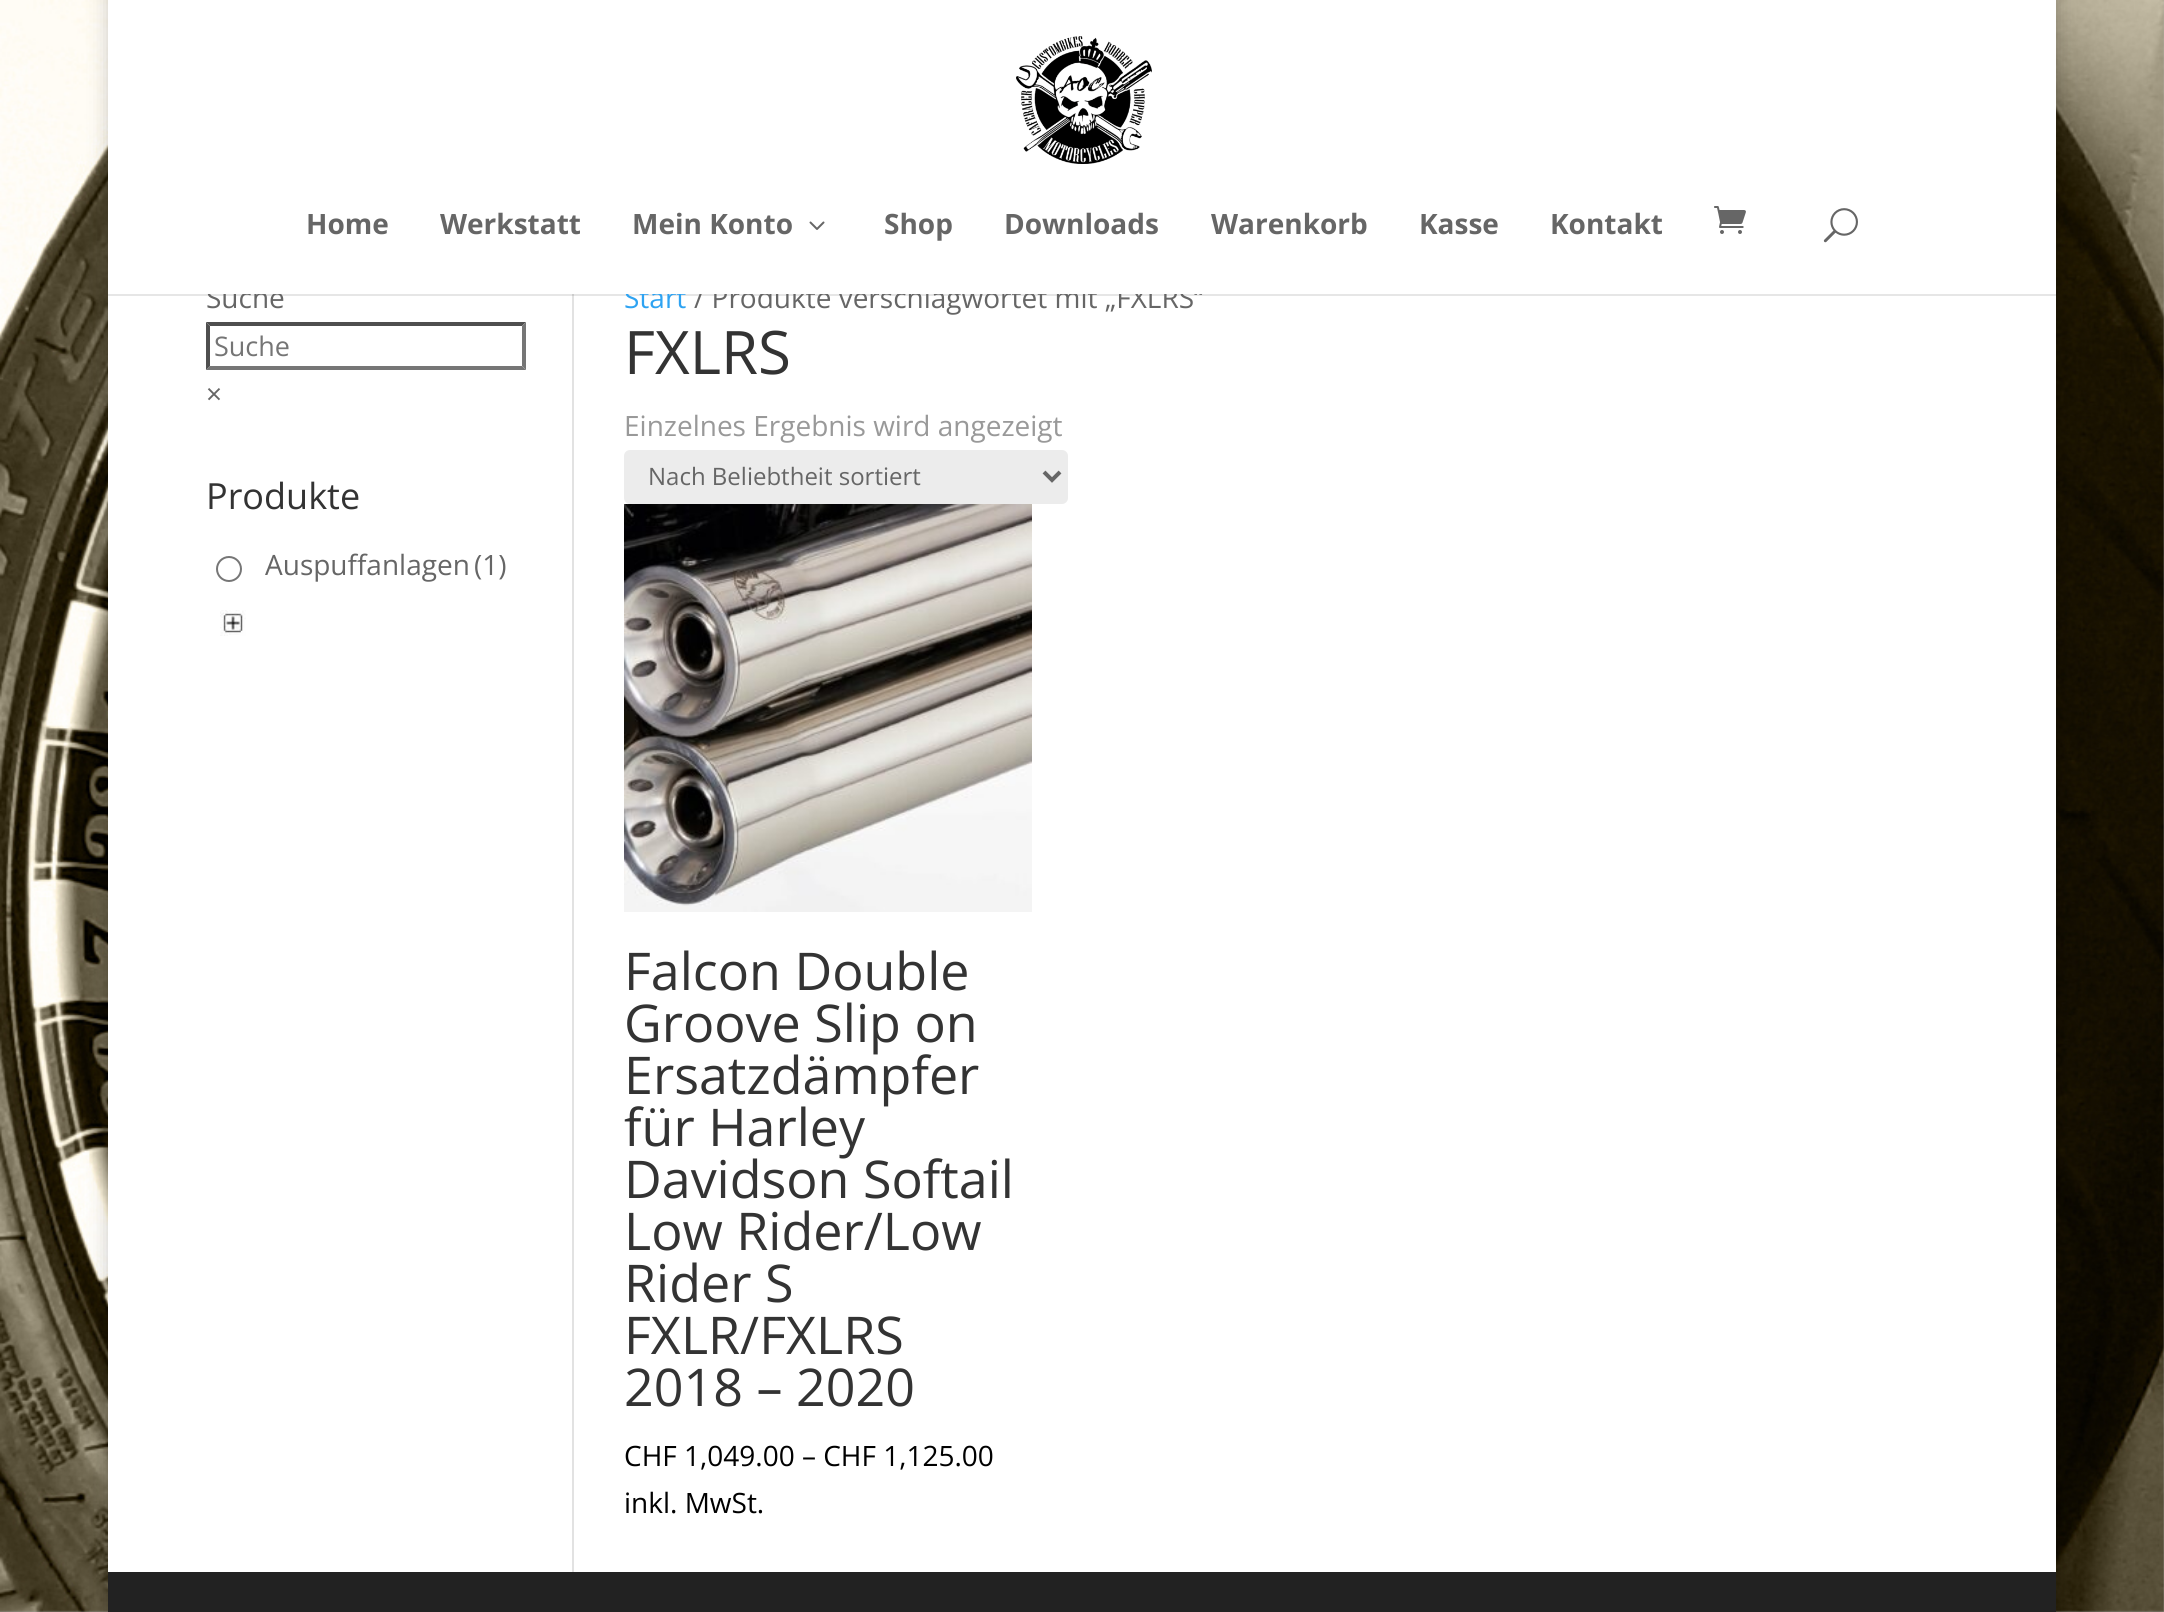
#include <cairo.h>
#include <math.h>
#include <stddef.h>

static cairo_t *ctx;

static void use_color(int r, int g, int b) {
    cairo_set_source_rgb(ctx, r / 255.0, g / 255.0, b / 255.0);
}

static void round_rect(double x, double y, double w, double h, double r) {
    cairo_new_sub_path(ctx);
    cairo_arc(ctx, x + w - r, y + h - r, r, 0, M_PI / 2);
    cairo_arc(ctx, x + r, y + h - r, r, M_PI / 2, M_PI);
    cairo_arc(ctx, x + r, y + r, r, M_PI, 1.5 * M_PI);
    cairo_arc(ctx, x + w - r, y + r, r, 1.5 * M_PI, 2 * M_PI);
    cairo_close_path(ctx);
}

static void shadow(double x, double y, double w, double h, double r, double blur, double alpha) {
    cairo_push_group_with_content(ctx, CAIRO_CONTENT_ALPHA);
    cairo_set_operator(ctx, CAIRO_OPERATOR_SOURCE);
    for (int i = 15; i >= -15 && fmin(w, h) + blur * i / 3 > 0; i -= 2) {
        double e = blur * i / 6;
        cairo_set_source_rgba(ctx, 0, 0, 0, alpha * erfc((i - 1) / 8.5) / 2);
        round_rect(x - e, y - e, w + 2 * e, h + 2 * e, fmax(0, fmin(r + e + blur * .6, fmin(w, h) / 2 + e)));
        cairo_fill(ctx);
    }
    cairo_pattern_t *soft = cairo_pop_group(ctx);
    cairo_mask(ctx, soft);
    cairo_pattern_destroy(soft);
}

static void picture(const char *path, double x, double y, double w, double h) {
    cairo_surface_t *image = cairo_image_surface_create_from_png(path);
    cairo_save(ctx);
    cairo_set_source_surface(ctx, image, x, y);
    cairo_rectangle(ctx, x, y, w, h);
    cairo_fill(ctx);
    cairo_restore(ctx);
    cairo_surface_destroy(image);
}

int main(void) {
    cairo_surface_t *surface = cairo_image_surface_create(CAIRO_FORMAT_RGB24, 2164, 1612);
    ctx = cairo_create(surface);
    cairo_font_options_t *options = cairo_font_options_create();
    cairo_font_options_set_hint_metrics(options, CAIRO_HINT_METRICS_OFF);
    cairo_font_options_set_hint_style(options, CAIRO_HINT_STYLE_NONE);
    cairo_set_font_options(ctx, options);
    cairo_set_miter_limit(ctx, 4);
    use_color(173, 173, 173);
    cairo_paint(ctx);
    picture("img1.png", 0, 0, 2164, 1612);
    use_color(0, 0, 0);
    shadow(108, -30, 1948, 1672, 0, 10, 0.2);
    use_color(255, 255, 255);
    cairo_rectangle(ctx, 108, 294, 1948, 1278);
    cairo_fill(ctx);
    use_color(226, 226, 226);
    cairo_rectangle(ctx, 572, 294, 2, 1278);
    cairo_fill(ctx);
    cairo_set_source_rgba(ctx, 0, 0, 0, 0.1);
    cairo_rectangle(ctx, 108, 294, 1948, 2);
    cairo_fill(ctx);
    cairo_select_font_face(ctx, "Open Sans", CAIRO_FONT_SLANT_NORMAL, CAIRO_FONT_WEIGHT_NORMAL);
    cairo_set_font_size(ctx, 28);
    use_color(102, 102, 102);
    cairo_move_to(ctx, 206, 308);
    cairo_show_text(ctx, "Suche");
    use_color(46, 163, 242);
    cairo_move_to(ctx, 624, 308);
    cairo_show_text(ctx, "Start");
    use_color(102, 102, 102);
    cairo_move_to(ctx, 694, 308);
    cairo_show_text(ctx, "/ Produkte verschlagwortet mit „FXLRS“");
    use_color(255, 255, 255);
    cairo_rectangle(ctx, 108, 0, 1948, 294);
    cairo_fill(ctx);
    picture("img2.png", 1016, 36, 136, 128);
    cairo_select_font_face(ctx, "Open Sans", CAIRO_FONT_SLANT_NORMAL, CAIRO_FONT_WEIGHT_BOLD);
    use_color(102, 102, 102);
    cairo_move_to(ctx, 306, 234);
    cairo_show_text(ctx, "Home");
    cairo_move_to(ctx, 440, 234);
    cairo_show_text(ctx, "Werkstatt");
    cairo_move_to(ctx, 632, 234);
    cairo_show_text(ctx, "Mein Konto");
    picture("img3.png", 809, 221, 16, 9);
    cairo_move_to(ctx, 884, 234);
    cairo_show_text(ctx, "Shop");
    cairo_move_to(ctx, 1004, 234);
    cairo_show_text(ctx, "Downloads");
    cairo_move_to(ctx, 1211, 234);
    cairo_show_text(ctx, "Warenkorb");
    cairo_move_to(ctx, 1419, 234);
    cairo_show_text(ctx, "Kasse");
    cairo_move_to(ctx, 1550, 234);
    cairo_show_text(ctx, "Kontakt");
    picture("img4.png", 1714, 206, 32, 28);
    picture("img5.png", 1823, 208, 35, 35);
    use_color(79, 79, 79);
    cairo_new_path(ctx);
    cairo_move_to(ctx, 206, 322);
    cairo_line_to(ctx, 526, 322);
    cairo_line_to(ctx, 522, 326);
    cairo_line_to(ctx, 210, 326);
    cairo_close_path(ctx);
    cairo_fill(ctx);
    use_color(118, 118, 118);
    cairo_new_path(ctx);
    cairo_move_to(ctx, 526, 322);
    cairo_line_to(ctx, 526, 370);
    cairo_line_to(ctx, 522, 366);
    cairo_line_to(ctx, 522, 326);
    cairo_close_path(ctx);
    cairo_fill(ctx);
    cairo_new_path(ctx);
    cairo_move_to(ctx, 526, 370);
    cairo_line_to(ctx, 206, 370);
    cairo_line_to(ctx, 210, 366);
    cairo_line_to(ctx, 522, 366);
    cairo_close_path(ctx);
    cairo_fill(ctx);
    use_color(79, 79, 79);
    cairo_new_path(ctx);
    cairo_move_to(ctx, 206, 370);
    cairo_line_to(ctx, 206, 322);
    cairo_line_to(ctx, 210, 326);
    cairo_line_to(ctx, 210, 366);
    cairo_close_path(ctx);
    cairo_fill(ctx);
    cairo_select_font_face(ctx, "Open Sans", CAIRO_FONT_SLANT_NORMAL, CAIRO_FONT_WEIGHT_NORMAL);
    cairo_set_font_size(ctx, 27);
    use_color(117, 117, 117);
    cairo_move_to(ctx, 214, 356);
    cairo_show_text(ctx, "Suche");
    cairo_set_font_size(ctx, 28);
    use_color(102, 102, 102);
    cairo_move_to(ctx, 206, 404);
    cairo_show_text(ctx, "×");
    cairo_set_font_size(ctx, 36);
    use_color(51, 51, 51);
    cairo_move_to(ctx, 206, 509);
    cairo_show_text(ctx, "Produkte");
    cairo_new_path(ctx);
    cairo_arc(ctx, 229, 569, 12, 0, 2 * M_PI);
    use_color(118, 118, 118);
    cairo_stroke(ctx);
    cairo_set_font_size(ctx, 28);
    use_color(102, 102, 102);
    cairo_move_to(ctx, 265, 575);
    cairo_show_text(ctx, "Auspuffanlagen");
    cairo_move_to(ctx, 474, 575);
    cairo_show_text(ctx, "(1)");
    picture("img6.png", 220, 610, 26, 26);
    cairo_set_font_size(ctx, 60);
    use_color(51, 51, 51);
    cairo_move_to(ctx, 624, 374);
    cairo_show_text(ctx, "FXLRS");
    cairo_set_font_size(ctx, 28);
    use_color(153, 153, 153);
    cairo_move_to(ctx, 624, 436);
    cairo_show_text(ctx, "Einzelnes Ergebnis wird angezeigt");
    use_color(236, 236, 236);
    round_rect(624, 450, 444, 54, 6);
    cairo_fill(ctx);
    cairo_new_path(ctx);
    cairo_move_to(ctx, 1044, 472);
    cairo_line_to(ctx, 1052, 480);
    cairo_line_to(ctx, 1060, 472);
    use_color(102, 102, 102);
    cairo_set_line_width(ctx, 4);
    cairo_stroke(ctx);
    cairo_set_font_size(ctx, 24);
    cairo_move_to(ctx, 648, 485);
    cairo_show_text(ctx, "Nach Beliebtheit sortiert");
    picture("img7.png", 624, 504, 408, 408);
    cairo_set_font_size(ctx, 52);
    use_color(51, 51, 51);
    cairo_move_to(ctx, 624, 990);
    cairo_show_text(ctx, "Falcon Double");
    cairo_move_to(ctx, 624, 1042);
    cairo_show_text(ctx, "Groove Slip on");
    cairo_move_to(ctx, 624, 1094);
    cairo_show_text(ctx, "Ersatzdämpfer");
    cairo_move_to(ctx, 624, 1146);
    cairo_show_text(ctx, "für Harley");
    cairo_move_to(ctx, 624, 1198);
    cairo_show_text(ctx, "Davidson Softail");
    cairo_move_to(ctx, 624, 1250);
    cairo_show_text(ctx, "Low Rider/Low");
    cairo_move_to(ctx, 624, 1302);
    cairo_show_text(ctx, "Rider S");
    cairo_move_to(ctx, 624, 1354);
    cairo_show_text(ctx, "FXLR/FXLRS");
    cairo_move_to(ctx, 624, 1406);
    cairo_show_text(ctx, "2018 – 2020");
    cairo_set_font_size(ctx, 28);
    use_color(0, 0, 0);
    cairo_move_to(ctx, 624, 1466);
    cairo_show_text(ctx, "CHF 1,049.00 – CHF 1,125.00");
    cairo_move_to(ctx, 624, 1513);
    cairo_show_text(ctx, "inkl. MwSt.");
    use_color(34, 34, 34);
    cairo_rectangle(ctx, 108, 1572, 1948, 40);
    cairo_fill(ctx);
    cairo_surface_write_to_png(surface, "result.png");
    cairo_font_options_destroy(options);
    cairo_destroy(ctx);
    cairo_surface_destroy(surface);
    return 0;
}
